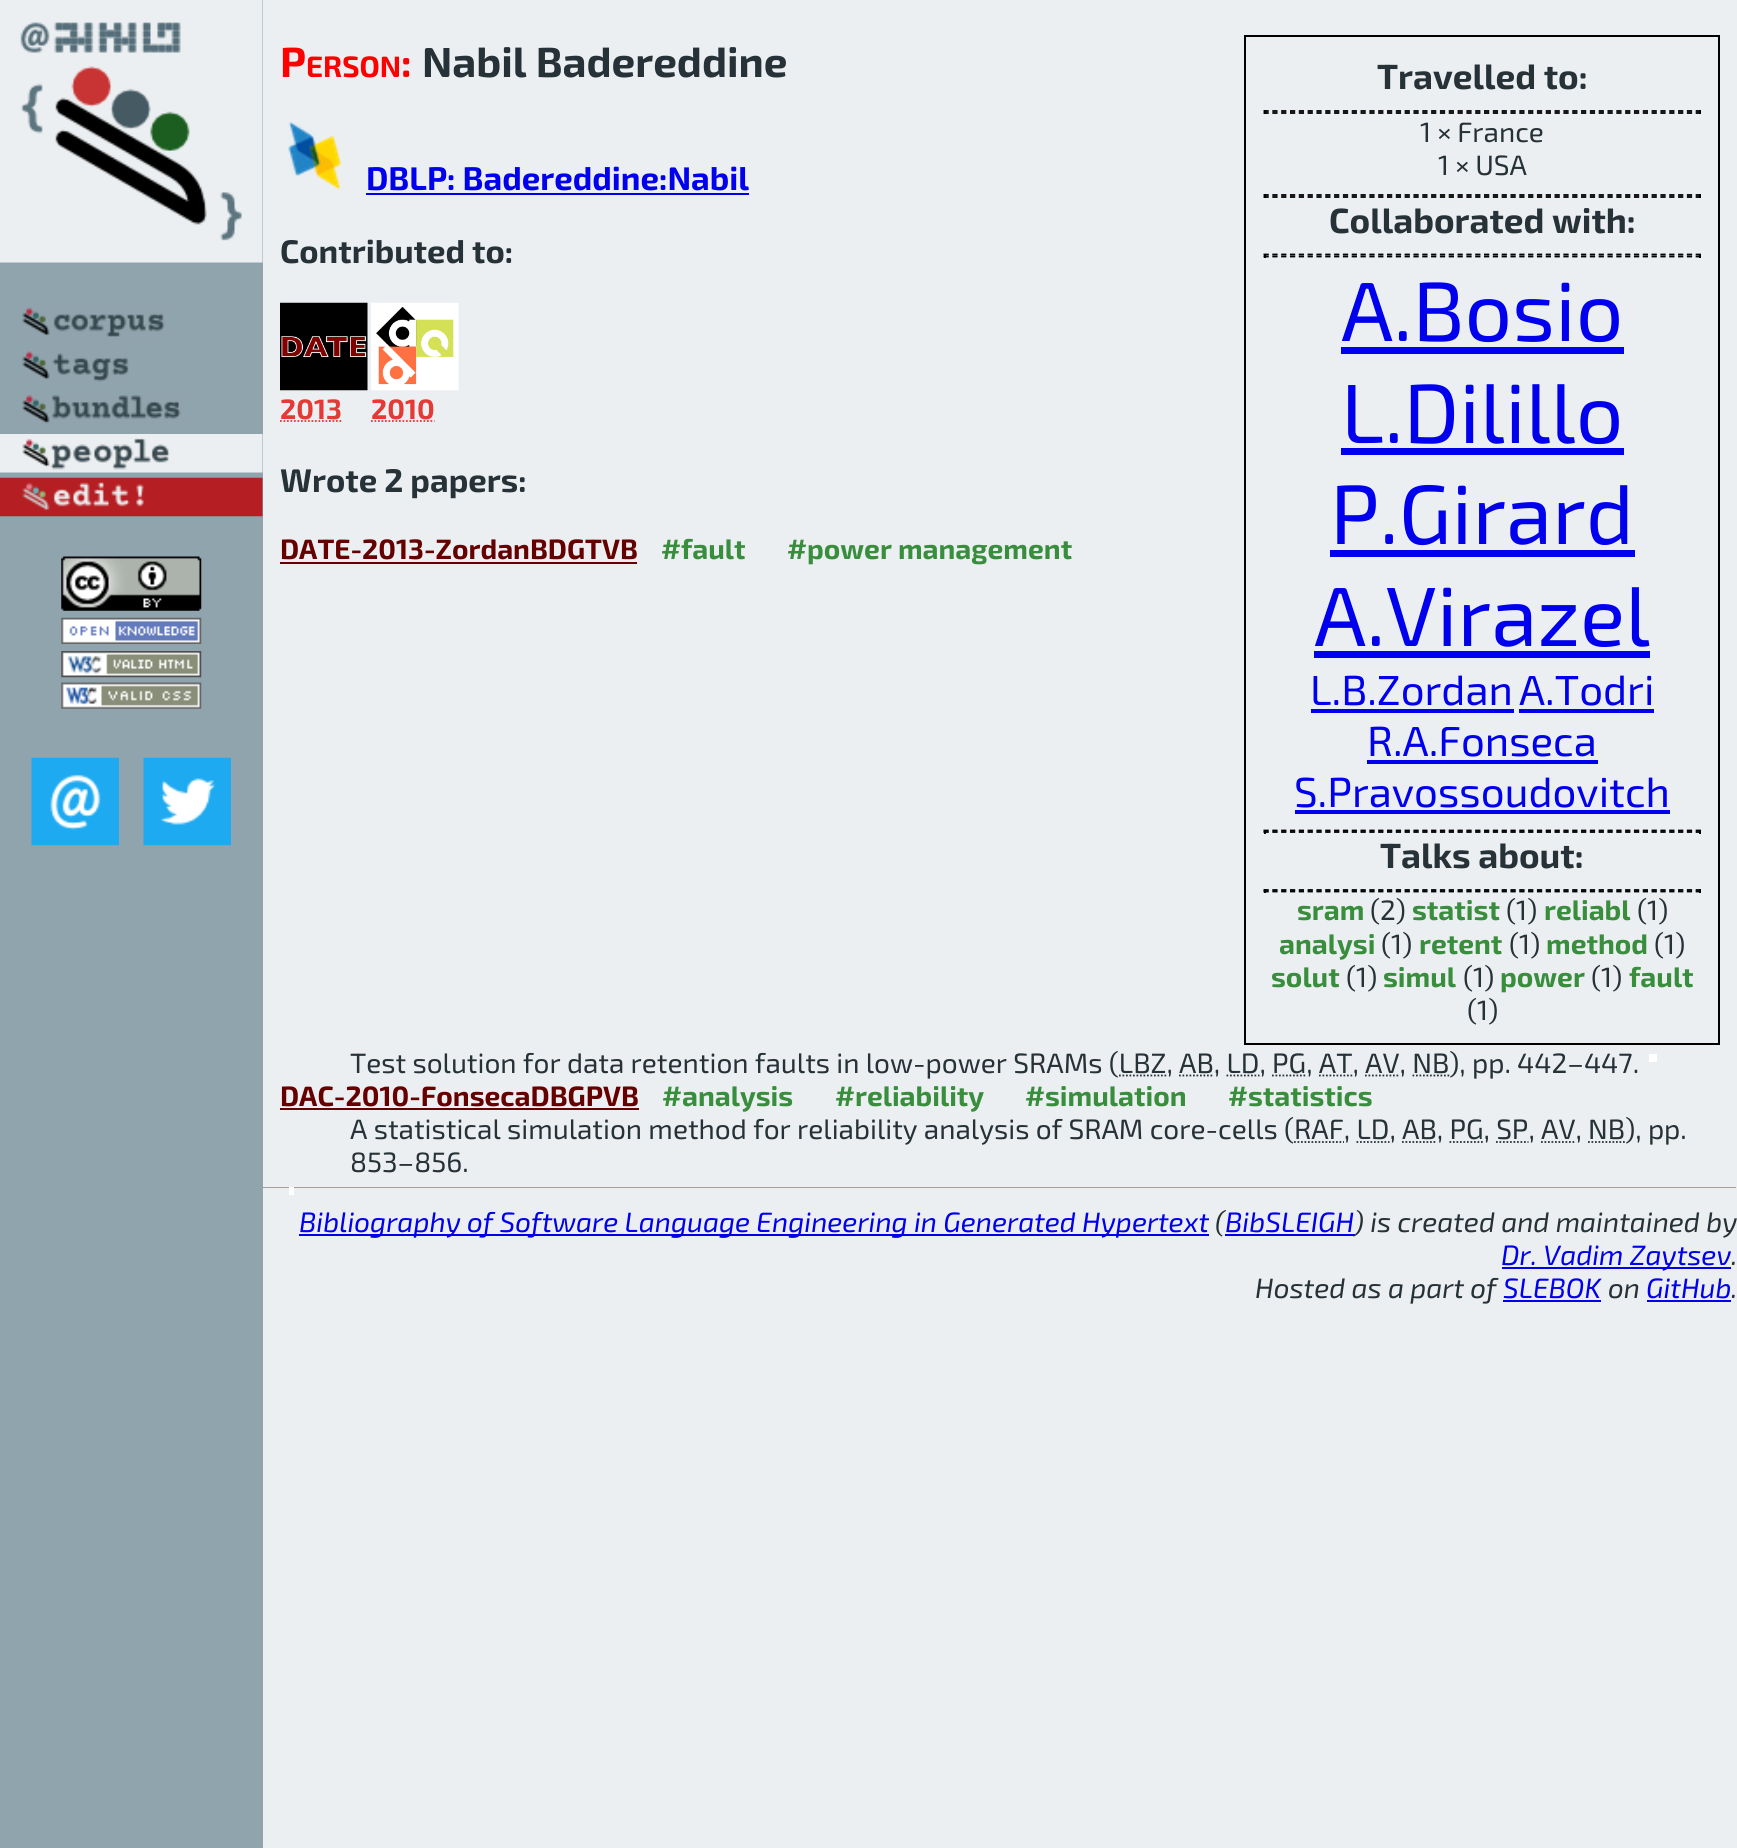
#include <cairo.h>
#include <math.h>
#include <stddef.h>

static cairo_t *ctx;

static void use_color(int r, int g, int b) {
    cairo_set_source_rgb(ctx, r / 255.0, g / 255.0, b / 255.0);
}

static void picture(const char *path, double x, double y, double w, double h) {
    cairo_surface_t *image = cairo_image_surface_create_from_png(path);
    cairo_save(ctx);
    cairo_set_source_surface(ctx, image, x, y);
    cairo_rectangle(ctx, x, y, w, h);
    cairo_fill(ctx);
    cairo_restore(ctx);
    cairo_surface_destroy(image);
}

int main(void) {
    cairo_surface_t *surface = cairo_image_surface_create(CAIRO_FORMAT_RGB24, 1737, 1848);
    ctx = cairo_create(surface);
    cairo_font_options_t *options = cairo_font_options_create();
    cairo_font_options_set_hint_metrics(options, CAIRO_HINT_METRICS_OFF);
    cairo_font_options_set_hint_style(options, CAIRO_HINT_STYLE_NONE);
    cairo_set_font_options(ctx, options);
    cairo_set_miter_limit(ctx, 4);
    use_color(236, 239, 241);
    cairo_paint(ctx);
    use_color(144, 164, 174);
    cairo_rectangle(ctx, 0, 0, 263, 1848);
    cairo_fill(ctx);
    picture("img1.png", 0, 0, 263, 263);
    picture("img2.png", 22, 307, 143, 30);
    picture("img3.png", 22, 351, 107, 31);
    picture("img4.png", 22, 395, 159, 29);
    picture("img5.png", 0, 434, 263, 39);
    picture("img6.png", 0, 477, 263, 40);
    picture("img7.png", 61, 556, 141, 55);
    picture("img8.png", 61, 617, 141, 27);
    picture("img9.png", 61, 651, 141, 27);
    picture("img10.png", 61, 682, 141, 27);
    picture("img11.png", 31, 757, 88, 89);
    picture("img12.png", 143, 757, 88, 89);
    cairo_select_font_face(ctx, "Exo 2", CAIRO_FONT_SLANT_NORMAL, CAIRO_FONT_WEIGHT_BOLD);
    cairo_set_font_size(ctx, 42);
    use_color(255, 0, 0);
    cairo_move_to(ctx, 280, 77);
    cairo_show_text(ctx, "P");
    cairo_set_font_size(ctx, 29.5);
    cairo_move_to(ctx, 306, 77);
    cairo_show_text(ctx, "ERSON");
    cairo_set_font_size(ctx, 42);
    cairo_move_to(ctx, 401, 77);
    cairo_show_text(ctx, ":");
    use_color(38, 50, 56);
    cairo_move_to(ctx, 422, 77);
    cairo_show_text(ctx, "Nabil Badereddine");
    cairo_rectangle(ctx, 1245, 36, 474, 1008);
    use_color(0, 0, 0);
    cairo_stroke(ctx);
    cairo_set_font_size(ctx, 35);
    use_color(38, 50, 56);
    cairo_move_to(ctx, 1377, 89);
    cairo_show_text(ctx, "Travelled to:");
    cairo_new_path(ctx);
    cairo_move_to(ctx, 1263.5, 111);
    cairo_line_to(ctx, 1701, 111);
    use_color(0, 0, 0);
    cairo_set_line_width(ctx, 1.8);
    cairo_set_dash(ctx, (double[]){5.25, 3.57}, 2, 0);
    cairo_stroke(ctx);
    cairo_rectangle(ctx, 1699, 110, 2, 4);
    cairo_fill(ctx);
    cairo_new_path(ctx);
    cairo_move_to(ctx, 1263.5, 113);
    cairo_line_to(ctx, 1701, 113);
    cairo_stroke(ctx);
    cairo_rectangle(ctx, 1264, 110, 2, 4);
    cairo_fill(ctx);
    cairo_select_font_face(ctx, "Exo 2", CAIRO_FONT_SLANT_NORMAL, CAIRO_FONT_WEIGHT_NORMAL);
    cairo_set_font_size(ctx, 28);
    use_color(38, 50, 56);
    cairo_move_to(ctx, 1420, 142);
    cairo_show_text(ctx, "1 × France");
    cairo_move_to(ctx, 1438, 175);
    cairo_show_text(ctx, "1 × USA");
    cairo_new_path(ctx);
    cairo_move_to(ctx, 1263.5, 195);
    cairo_line_to(ctx, 1701, 195);
    use_color(0, 0, 0);
    cairo_stroke(ctx);
    cairo_rectangle(ctx, 1699, 194, 2, 4);
    cairo_fill(ctx);
    cairo_new_path(ctx);
    cairo_move_to(ctx, 1263.5, 197);
    cairo_line_to(ctx, 1701, 197);
    cairo_stroke(ctx);
    cairo_rectangle(ctx, 1264, 194, 2, 4);
    cairo_fill(ctx);
    cairo_select_font_face(ctx, "Exo 2", CAIRO_FONT_SLANT_NORMAL, CAIRO_FONT_WEIGHT_BOLD);
    cairo_set_font_size(ctx, 35);
    use_color(38, 50, 56);
    cairo_move_to(ctx, 1329, 233);
    cairo_show_text(ctx, "Collaborated with:");
    cairo_new_path(ctx);
    cairo_move_to(ctx, 1263.5, 254.5);
    cairo_line_to(ctx, 1701, 254.5);
    use_color(0, 0, 0);
    cairo_stroke(ctx);
    cairo_rectangle(ctx, 1699, 254, 2, 4);
    cairo_fill(ctx);
    cairo_new_path(ctx);
    cairo_move_to(ctx, 1263.5, 256.5);
    cairo_line_to(ctx, 1701, 256.5);
    cairo_stroke(ctx);
    cairo_rectangle(ctx, 1264, 254, 2, 4);
    cairo_fill(ctx);
    cairo_select_font_face(ctx, "Exo 2", CAIRO_FONT_SLANT_NORMAL, CAIRO_FONT_WEIGHT_NORMAL);
    cairo_set_font_size(ctx, 84);
    use_color(0, 0, 238);
    cairo_move_to(ctx, 1341, 341);
    cairo_show_text(ctx, "A.Bosio");
    cairo_rectangle(ctx, 1341, 347, 283, 7);
    cairo_fill(ctx);
    cairo_move_to(ctx, 1341, 443);
    cairo_show_text(ctx, "L.Dilillo");
    cairo_rectangle(ctx, 1341, 448, 283, 7);
    cairo_fill(ctx);
    cairo_move_to(ctx, 1330, 544);
    cairo_show_text(ctx, "P.Girard");
    cairo_rectangle(ctx, 1330, 550, 305, 7);
    cairo_fill(ctx);
    cairo_move_to(ctx, 1314, 646);
    cairo_show_text(ctx, "A.Virazel");
    cairo_rectangle(ctx, 1314, 651, 336, 7);
    cairo_fill(ctx);
    cairo_set_font_size(ctx, 42);
    cairo_move_to(ctx, 1310, 705);
    cairo_show_text(ctx, "L.B.Zordan");
    cairo_rectangle(ctx, 1311, 709, 203, 4);
    cairo_fill(ctx);
    cairo_move_to(ctx, 1519, 705);
    cairo_show_text(ctx, "A.Todri");
    cairo_rectangle(ctx, 1519, 709, 135, 4);
    cairo_fill(ctx);
    cairo_move_to(ctx, 1367, 756);
    cairo_show_text(ctx, "R.A.Fonseca");
    cairo_rectangle(ctx, 1367, 760, 231, 4);
    cairo_fill(ctx);
    cairo_move_to(ctx, 1294, 807);
    cairo_show_text(ctx, "S.Pravossoudovitch");
    cairo_rectangle(ctx, 1295, 810, 375, 4);
    cairo_fill(ctx);
    cairo_new_path(ctx);
    cairo_move_to(ctx, 1263.5, 830.5);
    cairo_line_to(ctx, 1701, 830.5);
    use_color(0, 0, 0);
    cairo_stroke(ctx);
    cairo_rectangle(ctx, 1699, 830, 2, 4);
    cairo_fill(ctx);
    cairo_new_path(ctx);
    cairo_move_to(ctx, 1263.5, 832);
    cairo_line_to(ctx, 1701, 832);
    cairo_stroke(ctx);
    cairo_rectangle(ctx, 1264, 830, 2, 4);
    cairo_fill(ctx);
    cairo_select_font_face(ctx, "Exo 2", CAIRO_FONT_SLANT_NORMAL, CAIRO_FONT_WEIGHT_BOLD);
    cairo_set_font_size(ctx, 35);
    use_color(38, 50, 56);
    cairo_move_to(ctx, 1380, 868);
    cairo_show_text(ctx, "Talks about:");
    cairo_new_path(ctx);
    cairo_move_to(ctx, 1263.5, 890);
    cairo_line_to(ctx, 1701, 890);
    use_color(0, 0, 0);
    cairo_stroke(ctx);
    cairo_rectangle(ctx, 1699, 889, 2, 4);
    cairo_fill(ctx);
    cairo_new_path(ctx);
    cairo_move_to(ctx, 1263.5, 891.5);
    cairo_line_to(ctx, 1701, 891.5);
    cairo_stroke(ctx);
    cairo_rectangle(ctx, 1264, 889, 2, 4);
    cairo_fill(ctx);
    cairo_set_font_size(ctx, 28);
    use_color(56, 142, 60);
    cairo_move_to(ctx, 1297, 920);
    cairo_show_text(ctx, "sram");
    cairo_select_font_face(ctx, "Exo 2", CAIRO_FONT_SLANT_NORMAL, CAIRO_FONT_WEIGHT_NORMAL);
    use_color(38, 50, 56);
    cairo_move_to(ctx, 1370, 920);
    cairo_show_text(ctx, "(2)");
    cairo_select_font_face(ctx, "Exo 2", CAIRO_FONT_SLANT_NORMAL, CAIRO_FONT_WEIGHT_BOLD);
    use_color(56, 142, 60);
    cairo_move_to(ctx, 1412, 920);
    cairo_show_text(ctx, "statist");
    cairo_select_font_face(ctx, "Exo 2", CAIRO_FONT_SLANT_NORMAL, CAIRO_FONT_WEIGHT_NORMAL);
    use_color(38, 50, 56);
    cairo_move_to(ctx, 1506, 920);
    cairo_show_text(ctx, "(1)");
    cairo_select_font_face(ctx, "Exo 2", CAIRO_FONT_SLANT_NORMAL, CAIRO_FONT_WEIGHT_BOLD);
    use_color(56, 142, 60);
    cairo_move_to(ctx, 1544, 920);
    cairo_show_text(ctx, "reliabl");
    cairo_select_font_face(ctx, "Exo 2", CAIRO_FONT_SLANT_NORMAL, CAIRO_FONT_WEIGHT_NORMAL);
    use_color(38, 50, 56);
    cairo_move_to(ctx, 1637, 920);
    cairo_show_text(ctx, "(1)");
    cairo_select_font_face(ctx, "Exo 2", CAIRO_FONT_SLANT_NORMAL, CAIRO_FONT_WEIGHT_BOLD);
    use_color(56, 142, 60);
    cairo_move_to(ctx, 1279, 954);
    cairo_show_text(ctx, "analysi");
    cairo_select_font_face(ctx, "Exo 2", CAIRO_FONT_SLANT_NORMAL, CAIRO_FONT_WEIGHT_NORMAL);
    use_color(38, 50, 56);
    cairo_move_to(ctx, 1381, 954);
    cairo_show_text(ctx, "(1)");
    cairo_select_font_face(ctx, "Exo 2", CAIRO_FONT_SLANT_NORMAL, CAIRO_FONT_WEIGHT_BOLD);
    use_color(56, 142, 60);
    cairo_move_to(ctx, 1419, 954);
    cairo_show_text(ctx, "retent");
    cairo_select_font_face(ctx, "Exo 2", CAIRO_FONT_SLANT_NORMAL, CAIRO_FONT_WEIGHT_NORMAL);
    use_color(38, 50, 56);
    cairo_move_to(ctx, 1509, 954);
    cairo_show_text(ctx, "(1)");
    cairo_select_font_face(ctx, "Exo 2", CAIRO_FONT_SLANT_NORMAL, CAIRO_FONT_WEIGHT_BOLD);
    use_color(56, 142, 60);
    cairo_move_to(ctx, 1546, 954);
    cairo_show_text(ctx, "method");
    cairo_select_font_face(ctx, "Exo 2", CAIRO_FONT_SLANT_NORMAL, CAIRO_FONT_WEIGHT_NORMAL);
    use_color(38, 50, 56);
    cairo_move_to(ctx, 1654, 954);
    cairo_show_text(ctx, "(1)");
    cairo_select_font_face(ctx, "Exo 2", CAIRO_FONT_SLANT_NORMAL, CAIRO_FONT_WEIGHT_BOLD);
    use_color(56, 142, 60);
    cairo_move_to(ctx, 1271, 987);
    cairo_show_text(ctx, "solut");
    cairo_select_font_face(ctx, "Exo 2", CAIRO_FONT_SLANT_NORMAL, CAIRO_FONT_WEIGHT_NORMAL);
    use_color(38, 50, 56);
    cairo_move_to(ctx, 1346, 987);
    cairo_show_text(ctx, "(1)");
    cairo_select_font_face(ctx, "Exo 2", CAIRO_FONT_SLANT_NORMAL, CAIRO_FONT_WEIGHT_BOLD);
    use_color(56, 142, 60);
    cairo_move_to(ctx, 1383, 987);
    cairo_show_text(ctx, "simul");
    cairo_select_font_face(ctx, "Exo 2", CAIRO_FONT_SLANT_NORMAL, CAIRO_FONT_WEIGHT_NORMAL);
    use_color(38, 50, 56);
    cairo_move_to(ctx, 1463, 987);
    cairo_show_text(ctx, "(1)");
    cairo_select_font_face(ctx, "Exo 2", CAIRO_FONT_SLANT_NORMAL, CAIRO_FONT_WEIGHT_BOLD);
    use_color(56, 142, 60);
    cairo_move_to(ctx, 1500, 987);
    cairo_show_text(ctx, "power");
    cairo_select_font_face(ctx, "Exo 2", CAIRO_FONT_SLANT_NORMAL, CAIRO_FONT_WEIGHT_NORMAL);
    use_color(38, 50, 56);
    cairo_move_to(ctx, 1591, 987);
    cairo_show_text(ctx, "(1)");
    cairo_select_font_face(ctx, "Exo 2", CAIRO_FONT_SLANT_NORMAL, CAIRO_FONT_WEIGHT_BOLD);
    use_color(56, 142, 60);
    cairo_move_to(ctx, 1629, 987);
    cairo_show_text(ctx, "fault");
    cairo_select_font_face(ctx, "Exo 2", CAIRO_FONT_SLANT_NORMAL, CAIRO_FONT_WEIGHT_NORMAL);
    use_color(38, 50, 56);
    cairo_move_to(ctx, 1467, 1020);
    cairo_show_text(ctx, "(1)");
    picture("img13.png", 288, 122, 54, 68);
    cairo_select_font_face(ctx, "Exo 2", CAIRO_FONT_SLANT_NORMAL, CAIRO_FONT_WEIGHT_BOLD);
    cairo_set_font_size(ctx, 32.75);
    use_color(0, 0, 238);
    cairo_move_to(ctx, 366, 190);
    cairo_show_text(ctx, "DBLP: Badereddine:Nabil");
    cairo_rectangle(ctx, 366, 193, 383, 2);
    cairo_fill(ctx);
    use_color(38, 50, 56);
    cairo_move_to(ctx, 280, 263);
    cairo_show_text(ctx, "Contributed to:");
    picture("img14.png", 280, 302, 88, 89);
    cairo_set_font_size(ctx, 28);
    use_color(229, 57, 53);
    cairo_move_to(ctx, 280, 419);
    cairo_show_text(ctx, "2013");
    cairo_new_path(ctx);
    cairo_move_to(ctx, 280, 421);
    cairo_line_to(ctx, 342, 421);
    cairo_set_dash(ctx, (double[]){1.75, 1.75}, 2, 0);
    cairo_stroke(ctx);
    picture("img15.png", 371, 302, 88, 89);
    cairo_move_to(ctx, 371, 419);
    cairo_show_text(ctx, "2010");
    cairo_new_path(ctx);
    cairo_move_to(ctx, 371, 421);
    cairo_line_to(ctx, 434.5, 421);
    cairo_stroke(ctx);
    cairo_set_font_size(ctx, 32.75);
    use_color(38, 50, 56);
    cairo_move_to(ctx, 280, 492);
    cairo_show_text(ctx, "Wrote 2 papers:");
    cairo_set_font_size(ctx, 28);
    use_color(102, 0, 0);
    cairo_move_to(ctx, 280, 559);
    cairo_show_text(ctx, "DATE-2013-ZordanBDGTVB");
    cairo_rectangle(ctx, 280, 562, 357, 2);
    cairo_fill(ctx);
    use_color(56, 142, 60);
    cairo_move_to(ctx, 661, 559);
    cairo_show_text(ctx, "#fault");
    cairo_move_to(ctx, 787, 559);
    cairo_show_text(ctx, "#power management");
    cairo_select_font_face(ctx, "Exo 2", CAIRO_FONT_SLANT_NORMAL, CAIRO_FONT_WEIGHT_NORMAL);
    use_color(38, 50, 56);
    cairo_move_to(ctx, 350, 1073);
    cairo_show_text(ctx, "Test solution for data retention faults in low-power SRAMs (LBZ, AB, LD, PG, AT, AV, NB), pp. 442–447.");
    cairo_new_path(ctx);
    cairo_move_to(ctx, 1119, 1075.5);
    cairo_line_to(ctx, 1166.5, 1075.5);
    cairo_stroke(ctx);
    cairo_new_path(ctx);
    cairo_move_to(ctx, 1179, 1075.5);
    cairo_line_to(ctx, 1214, 1075.5);
    cairo_stroke(ctx);
    cairo_new_path(ctx);
    cairo_move_to(ctx, 1226.5, 1075.5);
    cairo_line_to(ctx, 1259.5, 1075.5);
    cairo_stroke(ctx);
    cairo_new_path(ctx);
    cairo_move_to(ctx, 1272, 1075.5);
    cairo_line_to(ctx, 1306.5, 1075.5);
    cairo_stroke(ctx);
    cairo_new_path(ctx);
    cairo_move_to(ctx, 1319, 1075.5);
    cairo_line_to(ctx, 1352.5, 1075.5);
    cairo_stroke(ctx);
    cairo_new_path(ctx);
    cairo_move_to(ctx, 1365, 1075.5);
    cairo_line_to(ctx, 1399.5, 1075.5);
    cairo_stroke(ctx);
    cairo_new_path(ctx);
    cairo_move_to(ctx, 1412.5, 1075.5);
    cairo_line_to(ctx, 1449.5, 1075.5);
    cairo_stroke(ctx);
    use_color(255, 255, 255);
    cairo_rectangle(ctx, 1649, 1054, 8, 8);
    cairo_fill(ctx);
    cairo_select_font_face(ctx, "Exo 2", CAIRO_FONT_SLANT_NORMAL, CAIRO_FONT_WEIGHT_BOLD);
    use_color(102, 0, 0);
    cairo_move_to(ctx, 280, 1106);
    cairo_show_text(ctx, "DAC-2010-FonsecaDBGPVB");
    cairo_rectangle(ctx, 280, 1108, 359, 2);
    cairo_fill(ctx);
    use_color(56, 142, 60);
    cairo_move_to(ctx, 662, 1106);
    cairo_show_text(ctx, "#analysis");
    cairo_move_to(ctx, 835, 1106);
    cairo_show_text(ctx, "#reliability");
    cairo_move_to(ctx, 1025, 1106);
    cairo_show_text(ctx, "#simulation");
    cairo_move_to(ctx, 1228, 1106);
    cairo_show_text(ctx, "#statistics");
    cairo_select_font_face(ctx, "Exo 2", CAIRO_FONT_SLANT_NORMAL, CAIRO_FONT_WEIGHT_NORMAL);
    use_color(38, 50, 56);
    cairo_move_to(ctx, 350, 1139);
    cairo_show_text(ctx, "A statistical simulation method for reliability analysis of SRAM core-cells (RAF, LD, AB, PG, SP, AV, NB), pp.");
    cairo_new_path(ctx);
    cairo_move_to(ctx, 1294, 1142);
    cairo_line_to(ctx, 1344, 1142);
    cairo_stroke(ctx);
    cairo_new_path(ctx);
    cairo_move_to(ctx, 1356.5, 1142);
    cairo_line_to(ctx, 1389.5, 1142);
    cairo_stroke(ctx);
    cairo_new_path(ctx);
    cairo_move_to(ctx, 1402, 1142);
    cairo_line_to(ctx, 1437, 1142);
    cairo_stroke(ctx);
    cairo_new_path(ctx);
    cairo_move_to(ctx, 1449.5, 1142);
    cairo_line_to(ctx, 1483.5, 1142);
    cairo_stroke(ctx);
    cairo_new_path(ctx);
    cairo_move_to(ctx, 1496, 1142);
    cairo_line_to(ctx, 1528.5, 1142);
    cairo_stroke(ctx);
    cairo_new_path(ctx);
    cairo_move_to(ctx, 1541, 1142);
    cairo_line_to(ctx, 1575.5, 1142);
    cairo_stroke(ctx);
    cairo_new_path(ctx);
    cairo_move_to(ctx, 1588, 1142);
    cairo_line_to(ctx, 1625.5, 1142);
    cairo_stroke(ctx);
    cairo_move_to(ctx, 350, 1172);
    cairo_show_text(ctx, "853–856.");
    use_color(159, 159, 159);
    cairo_rectangle(ctx, 263, 1187, 1474, 1);
    cairo_fill(ctx);
    use_color(238, 238, 238);
    cairo_rectangle(ctx, 1736, 1187, 1, 4);
    cairo_fill(ctx);
    cairo_rectangle(ctx, 263, 1188, 1474, 2);
    cairo_fill(ctx);
    use_color(255, 255, 255);
    cairo_rectangle(ctx, 289, 1187, 5, 8);
    cairo_fill(ctx);
    use_color(0, 0, 238);
    cairo_rectangle(ctx, 299, 1234, 910, 2);
    cairo_fill(ctx);
    cairo_select_font_face(ctx, "Exo 2", CAIRO_FONT_SLANT_ITALIC, CAIRO_FONT_WEIGHT_NORMAL);
    cairo_move_to(ctx, 299, 1232);
    cairo_show_text(ctx, "Bibliography of Software Language Engineering in Generated Hypertext");
    use_color(38, 50, 56);
    cairo_move_to(ctx, 1215, 1232);
    cairo_show_text(ctx, "(");
    use_color(0, 0, 238);
    cairo_move_to(ctx, 1225, 1232);
    cairo_show_text(ctx, "BibSLEIGH");
    cairo_rectangle(ctx, 1225, 1234, 130, 2);
    cairo_fill(ctx);
    use_color(38, 50, 56);
    cairo_move_to(ctx, 1354, 1232);
    cairo_show_text(ctx, ") is created and maintained by");
    use_color(0, 0, 238);
    cairo_rectangle(ctx, 1502, 1267, 229, 2);
    cairo_fill(ctx);
    cairo_move_to(ctx, 1501, 1265);
    cairo_show_text(ctx, "Dr. Vadim Zaytsev");
    use_color(38, 50, 56);
    cairo_move_to(ctx, 1731, 1265);
    cairo_show_text(ctx, ".");
    cairo_move_to(ctx, 1255, 1298);
    cairo_show_text(ctx, "Hosted as a part of");
    use_color(0, 0, 238);
    cairo_rectangle(ctx, 1503, 1300, 98, 2);
    cairo_fill(ctx);
    cairo_move_to(ctx, 1503, 1298);
    cairo_show_text(ctx, "SLEBOK");
    use_color(38, 50, 56);
    cairo_move_to(ctx, 1608, 1298);
    cairo_show_text(ctx, "on");
    use_color(0, 0, 238);
    cairo_move_to(ctx, 1646, 1298);
    cairo_show_text(ctx, "GitHub");
    use_color(38, 50, 56);
    cairo_move_to(ctx, 1731, 1298);
    cairo_show_text(ctx, ".");
    use_color(0, 0, 238);
    cairo_rectangle(ctx, 1647, 1300, 84, 2);
    cairo_fill(ctx);
    cairo_surface_write_to_png(surface, "result.png");
    cairo_font_options_destroy(options);
    cairo_destroy(ctx);
    cairo_surface_destroy(surface);
    return 0;
}
